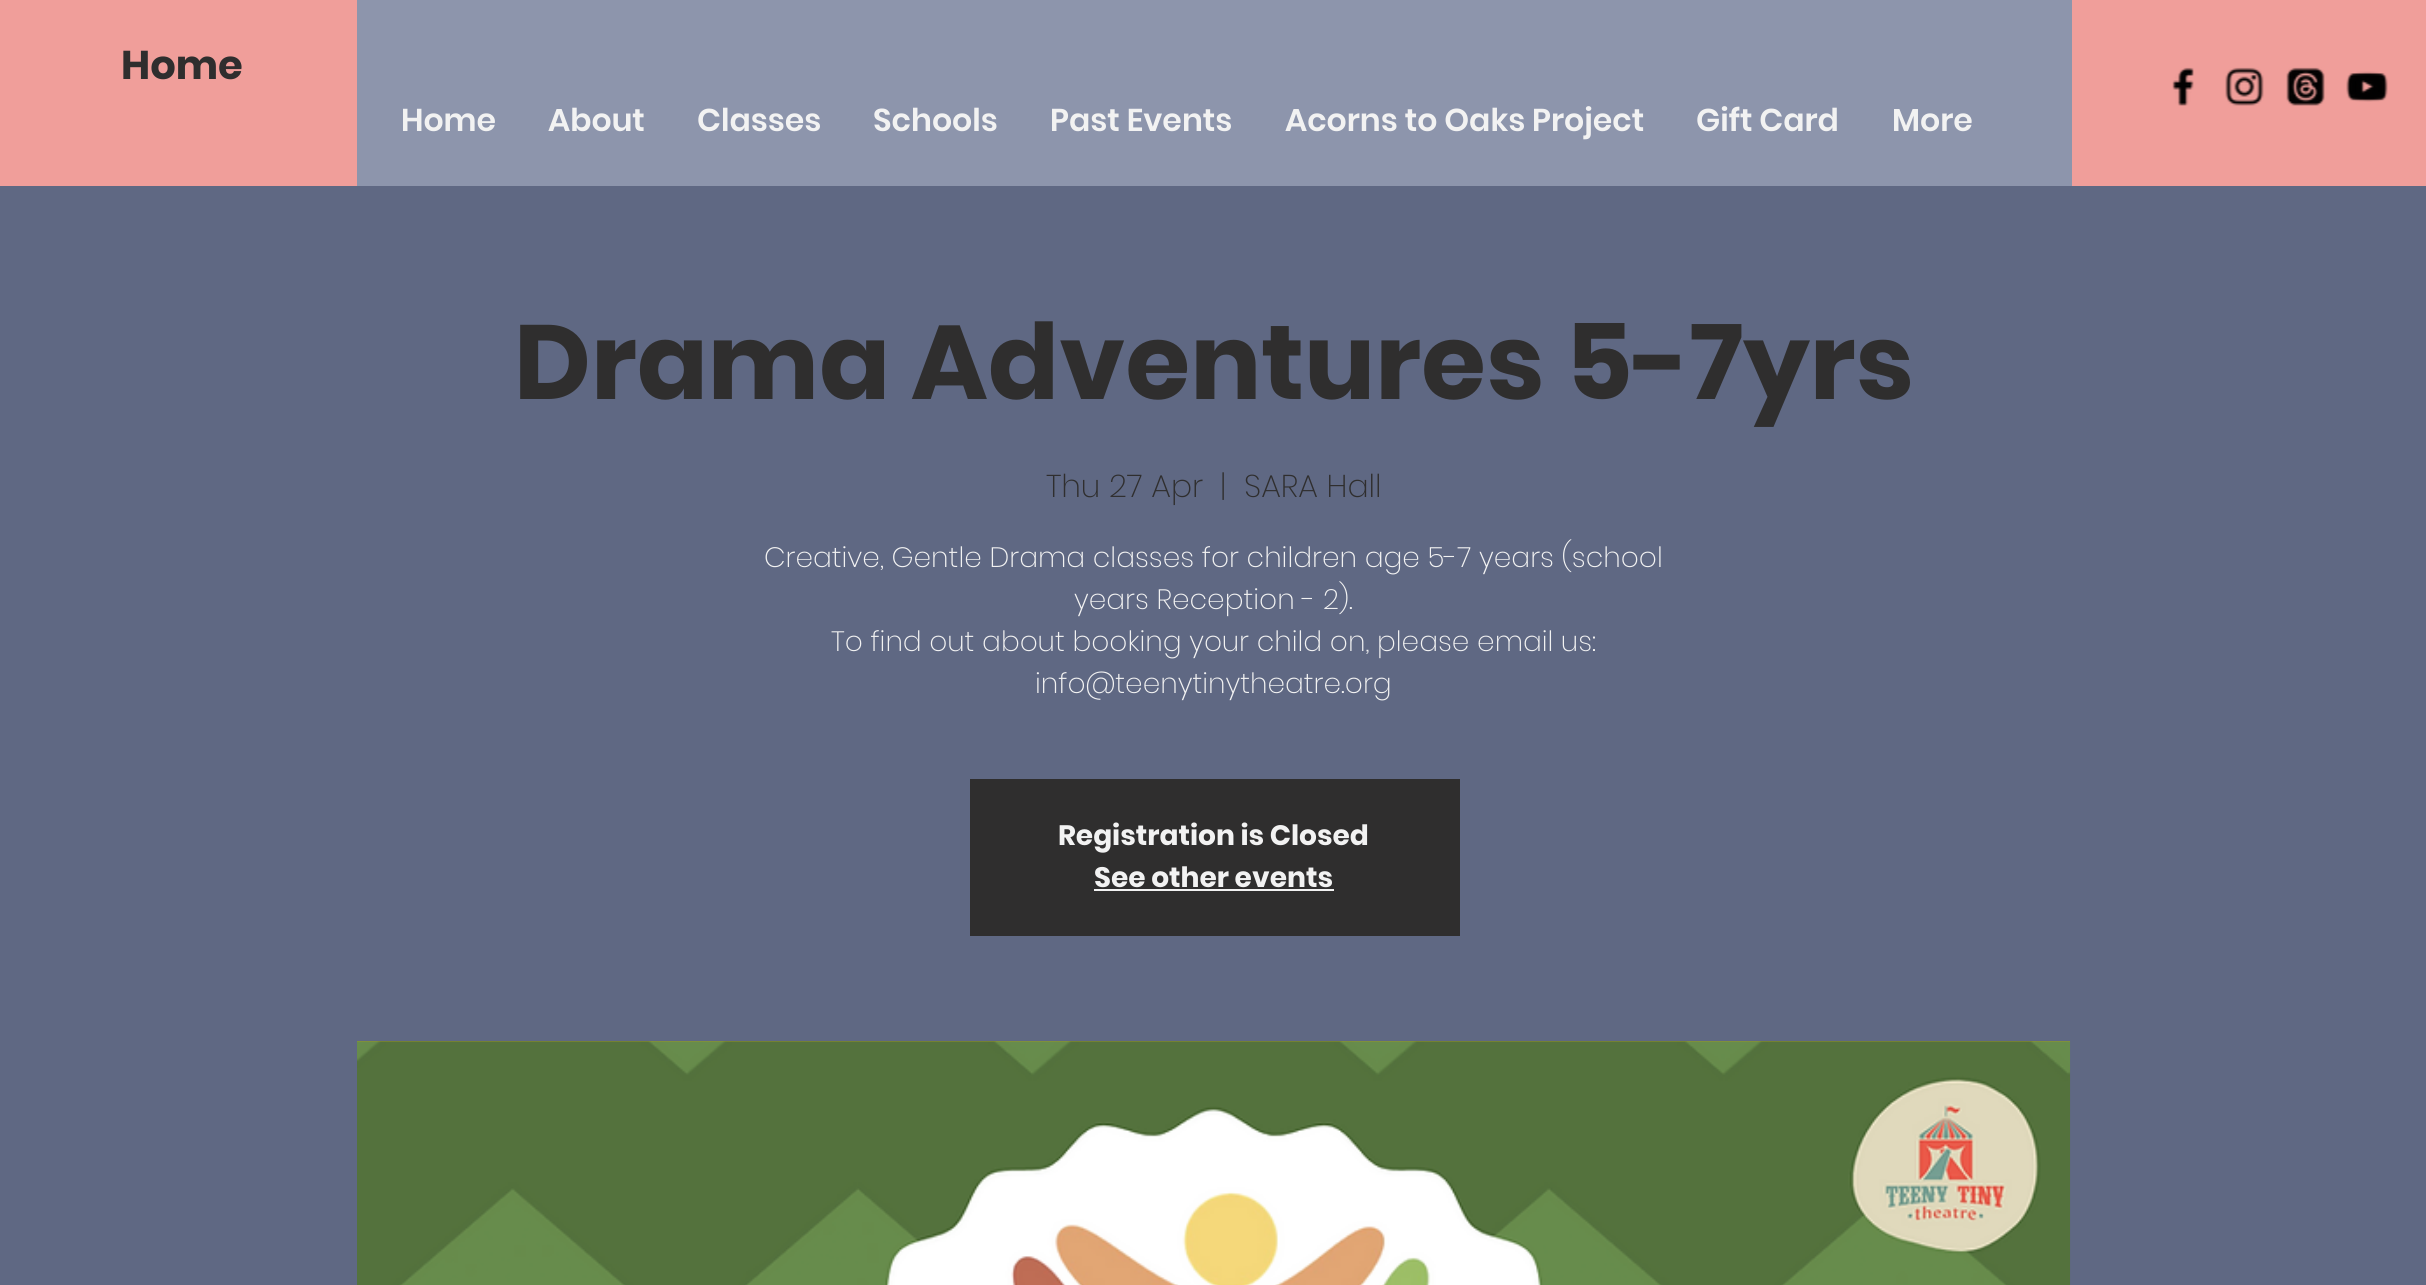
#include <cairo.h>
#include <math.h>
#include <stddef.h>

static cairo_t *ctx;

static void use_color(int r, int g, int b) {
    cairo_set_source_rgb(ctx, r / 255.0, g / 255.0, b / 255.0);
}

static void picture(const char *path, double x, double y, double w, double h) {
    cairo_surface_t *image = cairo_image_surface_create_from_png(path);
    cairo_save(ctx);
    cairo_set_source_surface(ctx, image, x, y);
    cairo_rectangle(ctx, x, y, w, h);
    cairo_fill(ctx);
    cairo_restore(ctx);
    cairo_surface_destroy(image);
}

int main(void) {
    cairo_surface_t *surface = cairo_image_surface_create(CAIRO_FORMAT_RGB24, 2426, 1285);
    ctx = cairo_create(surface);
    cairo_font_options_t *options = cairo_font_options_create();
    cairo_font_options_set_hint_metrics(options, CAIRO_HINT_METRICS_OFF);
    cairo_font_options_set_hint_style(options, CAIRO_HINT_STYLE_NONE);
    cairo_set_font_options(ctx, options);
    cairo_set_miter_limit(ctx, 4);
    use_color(240, 158, 154);
    cairo_paint(ctx);
    cairo_select_font_face(ctx, "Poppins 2", CAIRO_FONT_SLANT_NORMAL, CAIRO_FONT_WEIGHT_BOLD);
    cairo_set_font_size(ctx, 40);
    use_color(47, 46, 46);
    cairo_move_to(ctx, 121, 79);
    cairo_show_text(ctx, "Home");
    picture("img1.png", 2172, 67, 22, 39);
    picture("img2.png", 2225, 67, 39, 39);
    picture("img3.png", 2286, 67, 39, 39);
    picture("img4.png", 2346, 71, 42, 31);
    use_color(141, 149, 172);
    cairo_rectangle(ctx, 357, 0, 1715, 186);
    cairo_fill(ctx);
    cairo_select_font_face(ctx, "Poppins SemiBold", CAIRO_FONT_SLANT_NORMAL, CAIRO_FONT_WEIGHT_NORMAL);
    cairo_set_font_size(ctx, 31.5);
    use_color(242, 242, 242);
    cairo_move_to(ctx, 401, 131);
    cairo_show_text(ctx, "Home");
    cairo_move_to(ctx, 548, 131);
    cairo_show_text(ctx, "About");
    cairo_move_to(ctx, 697, 131);
    cairo_show_text(ctx, "Classes");
    cairo_move_to(ctx, 873, 131);
    cairo_show_text(ctx, "Schools");
    cairo_move_to(ctx, 1050, 131);
    cairo_show_text(ctx, "Past Events");
    cairo_move_to(ctx, 1285, 131);
    cairo_show_text(ctx, "Acorns to Oaks Project");
    cairo_move_to(ctx, 1696, 131);
    cairo_show_text(ctx, "Gift Card");
    cairo_move_to(ctx, 1892, 131);
    cairo_show_text(ctx, "More");
    use_color(95, 104, 131);
    cairo_rectangle(ctx, 0, 186, 2426, 1099);
    cairo_fill(ctx);
    cairo_select_font_face(ctx, "Poppins", CAIRO_FONT_SLANT_NORMAL, CAIRO_FONT_WEIGHT_BOLD);
    cairo_set_font_size(ctx, 105);
    use_color(47, 46, 46);
    cairo_move_to(ctx, 514, 399);
    cairo_show_text(ctx, "Drama Adventures 5-7yrs");
    cairo_select_font_face(ctx, "Poppins ExtraLight", CAIRO_FONT_SLANT_NORMAL, CAIRO_FONT_WEIGHT_NORMAL);
    cairo_set_font_size(ctx, 31.5);
    cairo_move_to(ctx, 1046, 497);
    cairo_show_text(ctx, "Thu 27 Apr");
    cairo_move_to(ctx, 1220, 497);
    cairo_show_text(ctx, "|");
    cairo_move_to(ctx, 1244, 497);
    cairo_show_text(ctx, "SARA Hall");
    cairo_set_font_size(ctx, 28);
    use_color(242, 242, 242);
    cairo_move_to(ctx, 764, 567);
    cairo_show_text(ctx, "Creative, Gentle Drama classes for children age 5-7 years (school");
    cairo_move_to(ctx, 1074, 609);
    cairo_show_text(ctx, "years Reception - 2).");
    cairo_move_to(ctx, 831, 651);
    cairo_show_text(ctx, "To find out about booking your child on, please email us:");
    cairo_move_to(ctx, 1035, 693);
    cairo_show_text(ctx, "info@teenytinytheatre.org");
    use_color(47, 46, 46);
    cairo_rectangle(ctx, 970, 779, 490, 157);
    cairo_fill(ctx);
    cairo_select_font_face(ctx, "Poppins", CAIRO_FONT_SLANT_NORMAL, CAIRO_FONT_WEIGHT_BOLD);
    use_color(242, 242, 242);
    cairo_move_to(ctx, 1058, 845);
    cairo_show_text(ctx, "Registration is Closed");
    cairo_move_to(ctx, 1094, 887);
    cairo_show_text(ctx, "See other events");
    cairo_rectangle(ctx, 1094, 889, 240, 2);
    cairo_fill(ctx);
    use_color(158, 150, 37);
    cairo_rectangle(ctx, 357, 1041, 1713, 1);
    cairo_fill(ctx);
    picture("img5.png", 357, 1041, 1714, 244);
    cairo_surface_write_to_png(surface, "result.png");
    cairo_font_options_destroy(options);
    cairo_destroy(ctx);
    cairo_surface_destroy(surface);
    return 0;
}
